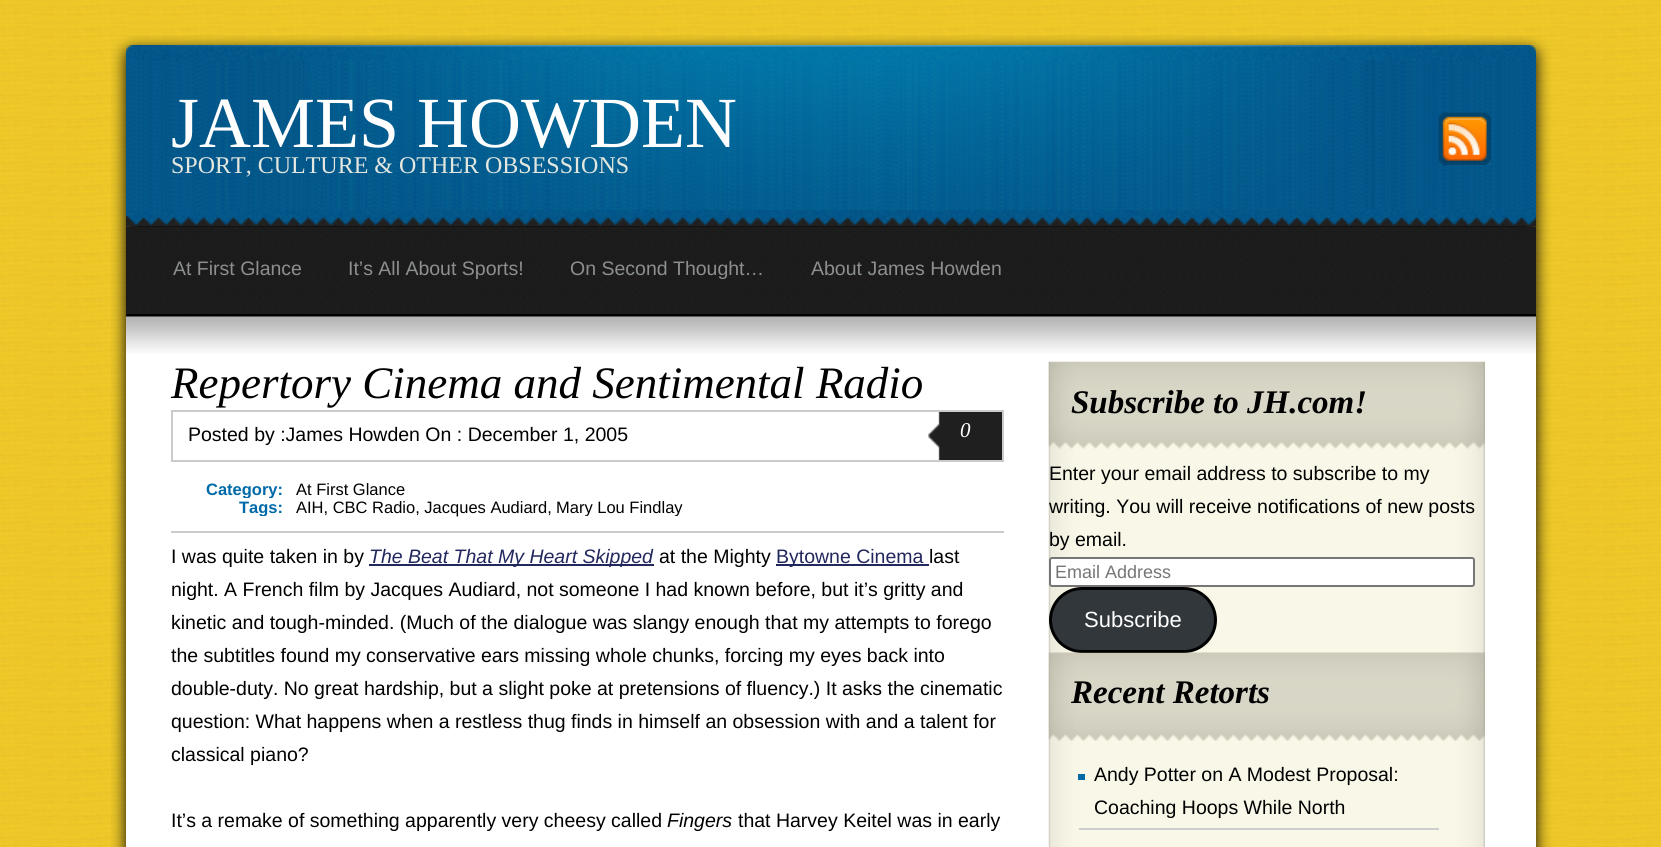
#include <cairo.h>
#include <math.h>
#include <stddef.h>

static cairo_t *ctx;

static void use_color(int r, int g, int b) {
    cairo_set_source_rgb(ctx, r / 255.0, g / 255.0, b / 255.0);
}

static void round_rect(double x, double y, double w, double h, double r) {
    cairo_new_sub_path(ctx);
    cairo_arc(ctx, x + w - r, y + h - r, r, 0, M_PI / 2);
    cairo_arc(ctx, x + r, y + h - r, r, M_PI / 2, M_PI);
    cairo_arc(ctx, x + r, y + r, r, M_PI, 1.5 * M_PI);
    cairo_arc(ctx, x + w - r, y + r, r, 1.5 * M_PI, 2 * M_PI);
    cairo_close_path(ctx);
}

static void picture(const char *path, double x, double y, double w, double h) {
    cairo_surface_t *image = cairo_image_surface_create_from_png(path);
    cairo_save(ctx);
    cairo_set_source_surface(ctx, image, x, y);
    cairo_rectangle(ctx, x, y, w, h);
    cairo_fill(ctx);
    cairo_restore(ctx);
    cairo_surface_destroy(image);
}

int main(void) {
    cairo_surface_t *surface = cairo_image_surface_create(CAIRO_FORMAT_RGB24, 1661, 847);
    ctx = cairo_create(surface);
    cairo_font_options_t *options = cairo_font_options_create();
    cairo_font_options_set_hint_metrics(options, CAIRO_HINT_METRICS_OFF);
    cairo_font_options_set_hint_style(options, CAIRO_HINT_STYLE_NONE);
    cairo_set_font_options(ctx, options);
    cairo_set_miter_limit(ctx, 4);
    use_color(255, 255, 255);
    cairo_paint(ctx);
    picture("img1.png", 0, 0, 1661, 847);
    picture("img2.png", 111, 35, 1440, 812);
    picture("img3.png", 126, 45, 1410, 15);
    picture("img4.png", 126, 60, 1410, 150);
    picture("img5.png", 305, 60, 1055, 150);
    cairo_select_font_face(ctx, "Liberation Serif", CAIRO_FONT_SLANT_NORMAL, CAIRO_FONT_WEIGHT_NORMAL);
    cairo_set_font_size(ctx, 72);
    use_color(255, 255, 255);
    cairo_move_to(ctx, 171, 147);
    cairo_show_text(ctx, "JAMES HOWDEN");
    cairo_set_font_size(ctx, 24);
    use_color(227, 231, 223);
    cairo_move_to(ctx, 171, 173);
    cairo_show_text(ctx, "SPORT, CULTURE & OTHER OBSESSIONS");
    picture("img6.png", 1438, 112, 53, 53);
    picture("img8.png", 126, 226, 1410, 88);
    picture("img7.png", 126, 210, 1410, 17);
    use_color(0, 0, 0);
    cairo_rectangle(ctx, 126, 314, 1410, 3);
    cairo_fill(ctx);
    cairo_select_font_face(ctx, "Liberation Sans", CAIRO_FONT_SLANT_NORMAL, CAIRO_FONT_WEIGHT_NORMAL);
    cairo_set_font_size(ctx, 19.5);
    use_color(141, 143, 143);
    cairo_move_to(ctx, 173, 275);
    cairo_show_text(ctx, "At First Glance");
    cairo_move_to(ctx, 348, 275);
    cairo_show_text(ctx, "It’s All About Sports!");
    cairo_move_to(ctx, 570, 275);
    cairo_show_text(ctx, "On Second Thought…");
    cairo_move_to(ctx, 811, 275);
    cairo_show_text(ctx, "About James Howden");
    use_color(255, 255, 255);
    cairo_rectangle(ctx, 126, 354, 1410, 493);
    cairo_fill(ctx);
    picture("img9.png", 126, 316, 1410, 38);
    cairo_select_font_face(ctx, "Liberation Serif", CAIRO_FONT_SLANT_ITALIC, CAIRO_FONT_WEIGHT_NORMAL);
    cairo_set_font_size(ctx, 45);
    use_color(0, 0, 0);
    cairo_move_to(ctx, 171, 398);
    cairo_show_text(ctx, "Repertory Cinema and Sentimental Radio");
    picture("img10.png", 928, 412, 74, 48);
    cairo_rectangle(ctx, 172, 411, 831, 50);
    use_color(203, 203, 203);
    cairo_stroke(ctx);
    cairo_select_font_face(ctx, "Liberation Sans", CAIRO_FONT_SLANT_NORMAL, CAIRO_FONT_WEIGHT_NORMAL);
    cairo_set_font_size(ctx, 19.5);
    use_color(0, 0, 0);
    cairo_move_to(ctx, 188, 441);
    cairo_show_text(ctx, "Posted by :James Howden On : December 1, 2005");
    cairo_select_font_face(ctx, "Liberation Serif", CAIRO_FONT_SLANT_ITALIC, CAIRO_FONT_WEIGHT_NORMAL);
    cairo_set_font_size(ctx, 21);
    use_color(255, 255, 255);
    cairo_move_to(ctx, 960, 437);
    cairo_show_text(ctx, "0");
    use_color(203, 203, 203);
    cairo_rectangle(ctx, 171, 531, 833, 2);
    cairo_fill(ctx);
    cairo_save(ctx);
    cairo_rectangle(ctx, 171, 480, 833, 18);
    cairo_clip(ctx);
    cairo_select_font_face(ctx, "Liberation Sans", CAIRO_FONT_SLANT_NORMAL, CAIRO_FONT_WEIGHT_BOLD);
    cairo_set_font_size(ctx, 16.5);
    use_color(0, 105, 168);
    cairo_move_to(ctx, 206, 495);
    cairo_show_text(ctx, "Category:");
    cairo_restore(ctx);
    cairo_select_font_face(ctx, "Liberation Sans", CAIRO_FONT_SLANT_NORMAL, CAIRO_FONT_WEIGHT_NORMAL);
    cairo_set_font_size(ctx, 16.5);
    use_color(0, 0, 0);
    cairo_move_to(ctx, 296, 495);
    cairo_show_text(ctx, "At First Glance");
    cairo_save(ctx);
    cairo_rectangle(ctx, 171, 498, 833, 18);
    cairo_clip(ctx);
    cairo_select_font_face(ctx, "Liberation Sans", CAIRO_FONT_SLANT_NORMAL, CAIRO_FONT_WEIGHT_BOLD);
    use_color(0, 105, 168);
    cairo_move_to(ctx, 239, 513);
    cairo_show_text(ctx, "Tags:");
    cairo_restore(ctx);
    cairo_move_to(ctx, 296, 513);
    cairo_show_text(ctx, "AIH, CBC Radio, Jacques Audiard,");
    cairo_save(ctx);
    cairo_rectangle(ctx, 171, 498, 833, 18);
    cairo_clip(ctx);
    cairo_move_to(ctx, 556, 513);
    cairo_show_text(ctx, "Mary Lou Findlay");
    cairo_restore(ctx);
    cairo_set_font_size(ctx, 19.5);
    cairo_move_to(ctx, 171, 563);
    cairo_show_text(ctx, "I was quite taken in by");
    use_color(34, 39, 94);
    cairo_rectangle(ctx, 369, 564, 285, 2);
    cairo_fill(ctx);
    cairo_select_font_face(ctx, "Liberation Sans", CAIRO_FONT_SLANT_ITALIC, CAIRO_FONT_WEIGHT_NORMAL);
    cairo_move_to(ctx, 369, 563);
    cairo_show_text(ctx, "The Beat That My Heart Skipped");
    cairo_select_font_face(ctx, "Liberation Sans", CAIRO_FONT_SLANT_NORMAL, CAIRO_FONT_WEIGHT_NORMAL);
    use_color(0, 0, 0);
    cairo_move_to(ctx, 659, 563);
    cairo_show_text(ctx, "at the Mighty");
    use_color(34, 39, 94);
    cairo_rectangle(ctx, 776, 564, 153, 2);
    cairo_fill(ctx);
    cairo_move_to(ctx, 776, 563);
    cairo_show_text(ctx, "Bytowne Cinema");
    use_color(0, 0, 0);
    cairo_move_to(ctx, 929, 563);
    cairo_show_text(ctx, "last");
    cairo_move_to(ctx, 171, 596);
    cairo_show_text(ctx, "night. A French film by Jacques Audiard, not someone I had known before, but it’s gritty and");
    cairo_move_to(ctx, 171, 629);
    cairo_show_text(ctx, "kinetic and tough-minded. (Much of the dialogue was slangy enough that my attempts to forego");
    cairo_move_to(ctx, 171, 662);
    cairo_show_text(ctx, "the subtitles found my conservative ears missing whole chunks, forcing my eyes back into");
    cairo_move_to(ctx, 171, 695);
    cairo_show_text(ctx, "double-duty. No great hardship, but a slight poke at pretensions of fluency.) It asks the cinematic");
    cairo_move_to(ctx, 171, 728);
    cairo_show_text(ctx, "question: What happens when a restless thug finds in himself an obsession with and a talent for");
    cairo_move_to(ctx, 171, 761);
    cairo_show_text(ctx, "classical piano?");
    cairo_move_to(ctx, 171, 827);
    cairo_show_text(ctx, "It’s a remake of something apparently very cheesy called");
    cairo_select_font_face(ctx, "Liberation Sans", CAIRO_FONT_SLANT_ITALIC, CAIRO_FONT_WEIGHT_NORMAL);
    cairo_move_to(ctx, 667, 827);
    cairo_show_text(ctx, "Fingers");
    cairo_select_font_face(ctx, "Liberation Sans", CAIRO_FONT_SLANT_NORMAL, CAIRO_FONT_WEIGHT_NORMAL);
    cairo_move_to(ctx, 738, 827);
    cairo_show_text(ctx, "that Harvey Keitel was in early");
    picture("img11.png", 1048, 361, 437, 486);
    picture("img12.png", 1048, 361, 437, 88);
    cairo_select_font_face(ctx, "Liberation Serif", CAIRO_FONT_SLANT_ITALIC, CAIRO_FONT_WEIGHT_BOLD);
    cairo_set_font_size(ctx, 33);
    cairo_move_to(ctx, 1071, 413);
    cairo_show_text(ctx, "Subscribe to JH.com!");
    cairo_select_font_face(ctx, "Liberation Sans", CAIRO_FONT_SLANT_NORMAL, CAIRO_FONT_WEIGHT_NORMAL);
    cairo_set_font_size(ctx, 19.5);
    cairo_move_to(ctx, 1049, 480);
    cairo_show_text(ctx, "Enter your email address to subscribe to my");
    cairo_move_to(ctx, 1049, 513);
    cairo_show_text(ctx, "writing. You will receive notifications of new posts");
    cairo_move_to(ctx, 1049, 546);
    cairo_show_text(ctx, "by email.");
    use_color(255, 255, 255);
    round_rect(1050, 558, 424, 28, 2);
    cairo_fill_preserve(ctx);
    use_color(118, 118, 118);
    cairo_stroke(ctx);
    cairo_set_font_size(ctx, 18);
    use_color(117, 117, 117);
    cairo_move_to(ctx, 1055, 578);
    cairo_show_text(ctx, "Email Address");
    use_color(50, 55, 60);
    round_rect(1050.5, 588.5, 165, 63, 31.5);
    cairo_fill_preserve(ctx);
    use_color(0, 0, 0);
    cairo_set_line_width(ctx, 3);
    cairo_stroke(ctx);
    cairo_set_font_size(ctx, 22);
    use_color(255, 255, 255);
    cairo_move_to(ctx, 1084, 627);
    cairo_show_text(ctx, "Subscribe");
    picture("img13.png", 1048, 652, 437, 89);
    cairo_select_font_face(ctx, "Liberation Serif", CAIRO_FONT_SLANT_ITALIC, CAIRO_FONT_WEIGHT_BOLD);
    cairo_set_font_size(ctx, 33);
    use_color(0, 0, 0);
    cairo_move_to(ctx, 1071, 703);
    cairo_show_text(ctx, "Recent Retorts");
    use_color(0, 105, 168);
    cairo_rectangle(ctx, 1078, 774, 7, 6);
    cairo_fill(ctx);
    use_color(205, 205, 205);
    cairo_rectangle(ctx, 1079, 828, 360, 2);
    cairo_fill(ctx);
    cairo_select_font_face(ctx, "Liberation Sans", CAIRO_FONT_SLANT_NORMAL, CAIRO_FONT_WEIGHT_NORMAL);
    cairo_set_font_size(ctx, 19.5);
    use_color(0, 0, 0);
    cairo_move_to(ctx, 1094, 781);
    cairo_show_text(ctx, "Andy Potter on A Modest Proposal:");
    cairo_move_to(ctx, 1094, 814);
    cairo_show_text(ctx, "Coaching Hoops While North");
    cairo_surface_write_to_png(surface, "result.png");
    cairo_font_options_destroy(options);
    cairo_destroy(ctx);
    cairo_surface_destroy(surface);
    return 0;
}
